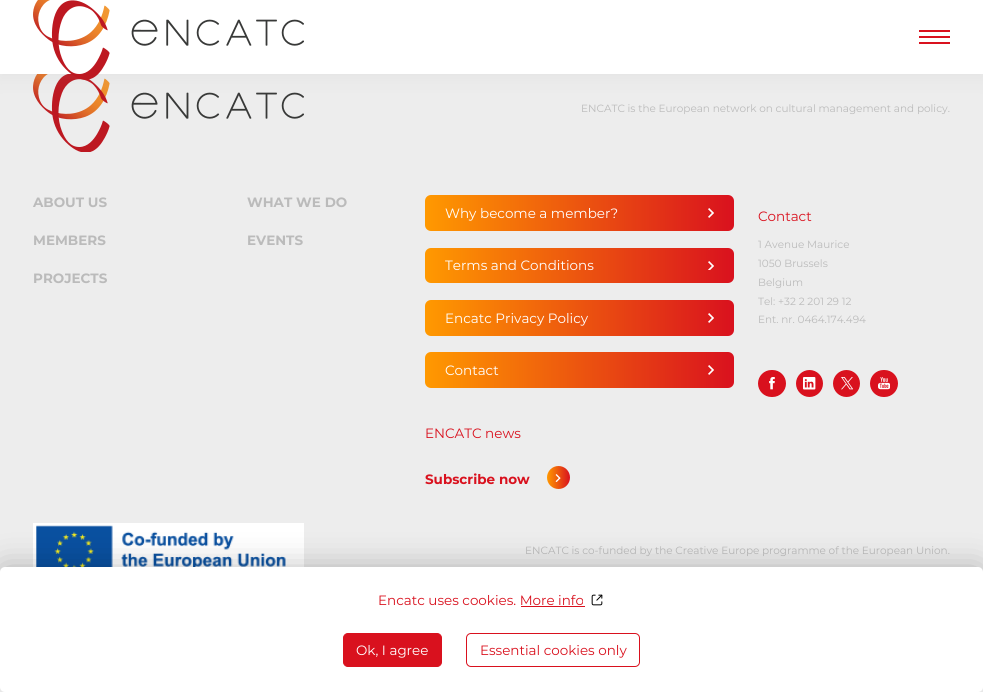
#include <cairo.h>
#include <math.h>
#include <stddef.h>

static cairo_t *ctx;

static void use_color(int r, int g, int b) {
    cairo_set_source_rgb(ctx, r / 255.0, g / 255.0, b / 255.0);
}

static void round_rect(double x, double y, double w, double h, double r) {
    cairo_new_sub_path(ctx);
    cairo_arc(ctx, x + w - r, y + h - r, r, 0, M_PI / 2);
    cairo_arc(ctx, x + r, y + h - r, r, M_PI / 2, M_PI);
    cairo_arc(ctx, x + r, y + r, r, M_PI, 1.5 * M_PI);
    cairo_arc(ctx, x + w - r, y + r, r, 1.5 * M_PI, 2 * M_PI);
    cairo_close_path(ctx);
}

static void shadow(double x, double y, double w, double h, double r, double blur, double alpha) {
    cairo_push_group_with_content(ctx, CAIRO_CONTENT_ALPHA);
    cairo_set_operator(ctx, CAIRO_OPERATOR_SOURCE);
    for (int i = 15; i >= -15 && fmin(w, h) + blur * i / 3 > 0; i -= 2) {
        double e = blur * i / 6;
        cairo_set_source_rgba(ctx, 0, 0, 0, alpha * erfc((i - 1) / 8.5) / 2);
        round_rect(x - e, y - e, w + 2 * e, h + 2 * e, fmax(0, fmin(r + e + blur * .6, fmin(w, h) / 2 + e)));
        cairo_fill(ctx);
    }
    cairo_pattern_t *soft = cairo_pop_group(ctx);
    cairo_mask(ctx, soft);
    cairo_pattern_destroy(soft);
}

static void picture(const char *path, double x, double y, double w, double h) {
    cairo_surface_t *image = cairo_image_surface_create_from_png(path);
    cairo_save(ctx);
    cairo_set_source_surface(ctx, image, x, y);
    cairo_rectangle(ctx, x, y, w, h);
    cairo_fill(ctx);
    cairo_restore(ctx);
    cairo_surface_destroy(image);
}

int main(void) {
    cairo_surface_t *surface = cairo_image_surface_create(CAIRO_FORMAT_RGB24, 983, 692);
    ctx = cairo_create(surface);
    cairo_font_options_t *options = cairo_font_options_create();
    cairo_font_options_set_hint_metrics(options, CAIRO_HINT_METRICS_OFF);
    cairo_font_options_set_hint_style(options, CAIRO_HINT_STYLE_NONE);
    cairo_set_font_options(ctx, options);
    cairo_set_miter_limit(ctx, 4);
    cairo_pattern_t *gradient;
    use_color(255, 255, 255);
    cairo_paint(ctx);
    use_color(237, 237, 237);
    cairo_rectangle(ctx, 0, 74, 983, 498);
    cairo_fill(ctx);
    picture("img2.png", 33, 74, 271, 78);
    use_color(153, 153, 153);
    shadow(-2, 2, 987, 78, 0, 9, 0.1);
    use_color(255, 255, 255);
    cairo_rectangle(ctx, 0, 0, 983, 74);
    cairo_fill(ctx);
    picture("img1.png", 33, 0, 271, 80);
    use_color(217, 17, 30);
    cairo_rectangle(ctx, 919, 30, 31, 2);
    cairo_fill(ctx);
    cairo_rectangle(ctx, 919, 36, 31, 2);
    cairo_fill(ctx);
    cairo_rectangle(ctx, 919, 42, 31, 2);
    cairo_fill(ctx);
    cairo_select_font_face(ctx, "Montserrat", CAIRO_FONT_SLANT_NORMAL, CAIRO_FONT_WEIGHT_NORMAL);
    cairo_set_font_size(ctx, 10.45);
    use_color(187, 187, 187);
    cairo_move_to(ctx, 581, 112);
    cairo_show_text(ctx, "ENCATC is the European network on cultural management and policy.");
    cairo_select_font_face(ctx, "Montserrat", CAIRO_FONT_SLANT_NORMAL, CAIRO_FONT_WEIGHT_BOLD);
    cairo_set_font_size(ctx, 13.5);
    cairo_move_to(ctx, 33, 207);
    cairo_show_text(ctx, "ABOUT US");
    cairo_move_to(ctx, 247, 207);
    cairo_show_text(ctx, "WHAT WE DO");
    cairo_move_to(ctx, 33, 245);
    cairo_show_text(ctx, "MEMBERS");
    cairo_move_to(ctx, 247, 245);
    cairo_show_text(ctx, "EVENTS");
    cairo_move_to(ctx, 33, 283);
    cairo_show_text(ctx, "PROJECTS");
    gradient = cairo_pattern_create_linear(425, 213, 734, 213);
    cairo_pattern_add_color_stop_rgba(gradient, 0, 1, 0.6, 0, 1);
    cairo_pattern_add_color_stop_rgba(gradient, 1, 0.851, 0.067, 0.118, 1);
    cairo_set_source(ctx, gradient);
    cairo_pattern_destroy(gradient);
    round_rect(425, 195, 309, 36, 6);
    cairo_fill(ctx);
    cairo_select_font_face(ctx, "Montserrat", CAIRO_FONT_SLANT_NORMAL, CAIRO_FONT_WEIGHT_NORMAL);
    use_color(255, 255, 255);
    cairo_move_to(ctx, 445, 218);
    cairo_show_text(ctx, "Why become a member?");
    picture("img3.png", 708, 208, 6, 10);
    gradient = cairo_pattern_create_linear(425, 266, 734, 266);
    cairo_pattern_add_color_stop_rgba(gradient, 0, 1, 0.6, 0, 1);
    cairo_pattern_add_color_stop_rgba(gradient, 1, 0.851, 0.067, 0.118, 1);
    cairo_set_source(ctx, gradient);
    cairo_pattern_destroy(gradient);
    round_rect(425, 248, 309, 35, 6);
    cairo_fill(ctx);
    use_color(255, 255, 255);
    cairo_move_to(ctx, 445, 270);
    cairo_show_text(ctx, "Terms and Conditions");
    picture("img4.png", 708, 261, 6, 9);
    gradient = cairo_pattern_create_linear(425, 318, 734, 318);
    cairo_pattern_add_color_stop_rgba(gradient, 0, 1, 0.6, 0, 1);
    cairo_pattern_add_color_stop_rgba(gradient, 1, 0.851, 0.067, 0.118, 1);
    cairo_set_source(ctx, gradient);
    cairo_pattern_destroy(gradient);
    round_rect(425, 300, 309, 36, 6);
    cairo_fill(ctx);
    use_color(255, 255, 255);
    cairo_move_to(ctx, 445, 323);
    cairo_show_text(ctx, "Encatc Privacy Policy");
    picture("img3.png", 708, 313, 6, 10);
    gradient = cairo_pattern_create_linear(425, 370, 734, 370);
    cairo_pattern_add_color_stop_rgba(gradient, 0, 1, 0.6, 0, 1);
    cairo_pattern_add_color_stop_rgba(gradient, 1, 0.851, 0.067, 0.118, 1);
    cairo_set_source(ctx, gradient);
    cairo_pattern_destroy(gradient);
    round_rect(425, 352, 309, 36, 6);
    cairo_fill(ctx);
    use_color(255, 255, 255);
    cairo_move_to(ctx, 445, 375);
    cairo_show_text(ctx, "Contact");
    picture("img3.png", 708, 365, 6, 10);
    use_color(217, 17, 30);
    cairo_move_to(ctx, 758, 221);
    cairo_show_text(ctx, "Contact");
    cairo_set_font_size(ctx, 10.45);
    use_color(187, 187, 187);
    cairo_move_to(ctx, 758, 248);
    cairo_show_text(ctx, "1 Avenue Maurice");
    cairo_move_to(ctx, 758, 267);
    cairo_show_text(ctx, "1050 Brussels");
    cairo_move_to(ctx, 758, 286);
    cairo_show_text(ctx, "Belgium");
    cairo_move_to(ctx, 758, 305);
    cairo_show_text(ctx, "Tel: +32 2 201 29 12");
    cairo_move_to(ctx, 758, 323);
    cairo_show_text(ctx, "Ent. nr. 0464.174.494");
    use_color(217, 17, 30);
    round_rect(758, 370, 28, 27, 13.5);
    cairo_fill(ctx);
    picture("img5.png", 769, 377, 6, 13);
    cairo_arc(ctx, 809.5, 383.5, 13.5, 0, 2 * M_PI);
    cairo_fill(ctx);
    picture("img6.png", 803, 377, 13, 13);
    cairo_arc(ctx, 846.5, 383.5, 13.5, 0, 2 * M_PI);
    cairo_fill(ctx);
    picture("img7.png", 841, 377, 12, 13);
    round_rect(870, 370, 28, 27, 13.5);
    cairo_fill(ctx);
    picture("img8.png", 878, 377, 12, 13);
    cairo_set_font_size(ctx, 13.5);
    cairo_move_to(ctx, 425, 438);
    cairo_show_text(ctx, "ENCATC news");
    cairo_select_font_face(ctx, "Montserrat", CAIRO_FONT_SLANT_NORMAL, CAIRO_FONT_WEIGHT_BOLD);
    cairo_move_to(ctx, 425, 484);
    cairo_show_text(ctx, "Subscribe now");
    gradient = cairo_pattern_create_linear(547, 478, 570, 478);
    cairo_pattern_add_color_stop_rgba(gradient, 0, 1, 0.6, 0, 1);
    cairo_pattern_add_color_stop_rgba(gradient, 1, 0.851, 0.067, 0.118, 1);
    cairo_set_source(ctx, gradient);
    cairo_pattern_destroy(gradient);
    cairo_new_path(ctx);
    cairo_arc(ctx, 558.5, 477.5, 11.5, 0, 2 * M_PI);
    cairo_fill(ctx);
    picture("img9.png", 555, 474, 6, 8);
    picture("img10.png", 33, 523, 271, 44);
    cairo_select_font_face(ctx, "Montserrat", CAIRO_FONT_SLANT_NORMAL, CAIRO_FONT_WEIGHT_NORMAL);
    cairo_set_font_size(ctx, 10.45);
    use_color(187, 187, 187);
    cairo_move_to(ctx, 525, 554);
    cairo_show_text(ctx, "ENCATC is co-funded by the Creative Europe programme of the European Union.");
    use_color(0, 0, 0);
    shadow(0, 567, 983, 125, 5, 16, 0.25);
    use_color(255, 255, 255);
    round_rect(0, 567, 983, 125, 5);
    cairo_fill(ctx);
    cairo_set_font_size(ctx, 13.5);
    use_color(217, 17, 30);
    cairo_move_to(ctx, 378, 605);
    cairo_show_text(ctx, "Encatc uses cookies. More info");
    picture("img11.png", 591, 594, 12, 12);
    cairo_rectangle(ctx, 521, 606, 64, 1);
    cairo_fill(ctx);
    round_rect(343.5, 633.5, 98, 33, 4.5);
    cairo_fill_preserve(ctx);
    cairo_set_line_width(ctx, 1);
    cairo_stroke(ctx);
    use_color(255, 255, 255);
    cairo_move_to(ctx, 356, 655);
    cairo_show_text(ctx, "Ok, I agree");
    round_rect(466.5, 633.5, 173, 33, 4.5);
    use_color(217, 17, 30);
    cairo_stroke(ctx);
    cairo_move_to(ctx, 480, 655);
    cairo_show_text(ctx, "Essential cookies only");
    cairo_surface_write_to_png(surface, "result.png");
    cairo_font_options_destroy(options);
    cairo_destroy(ctx);
    cairo_surface_destroy(surface);
    return 0;
}
